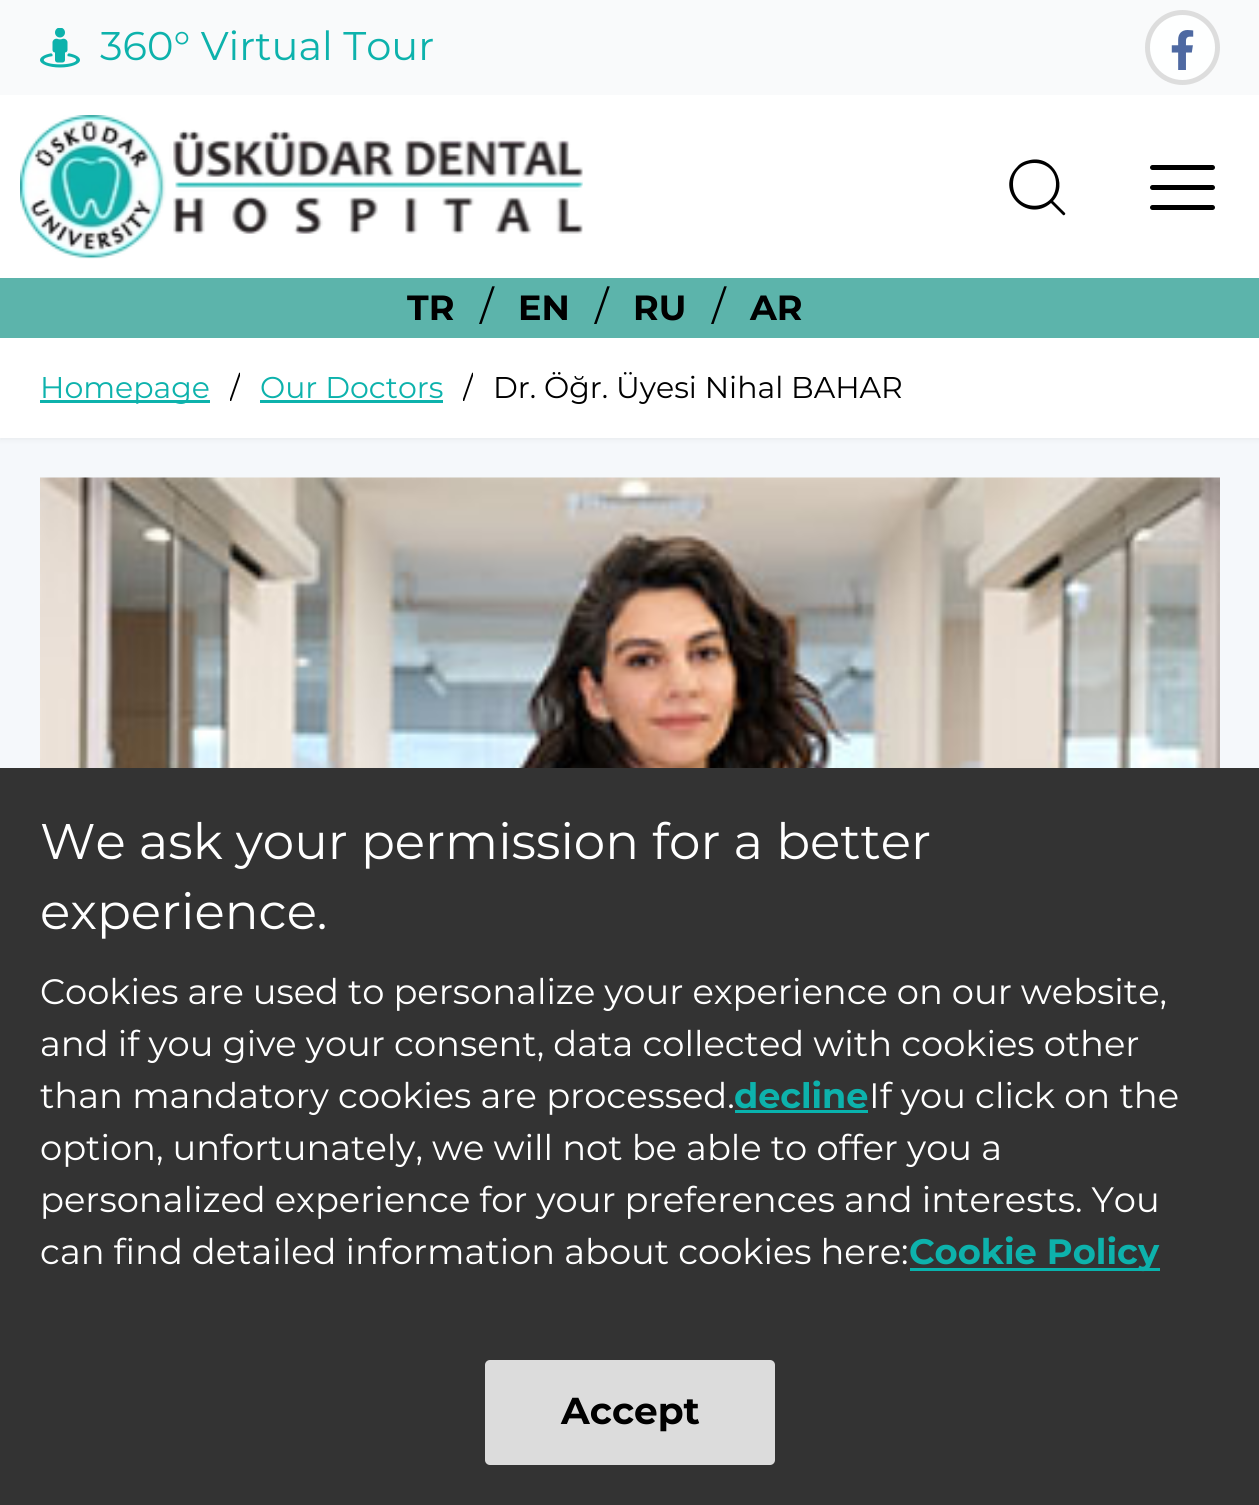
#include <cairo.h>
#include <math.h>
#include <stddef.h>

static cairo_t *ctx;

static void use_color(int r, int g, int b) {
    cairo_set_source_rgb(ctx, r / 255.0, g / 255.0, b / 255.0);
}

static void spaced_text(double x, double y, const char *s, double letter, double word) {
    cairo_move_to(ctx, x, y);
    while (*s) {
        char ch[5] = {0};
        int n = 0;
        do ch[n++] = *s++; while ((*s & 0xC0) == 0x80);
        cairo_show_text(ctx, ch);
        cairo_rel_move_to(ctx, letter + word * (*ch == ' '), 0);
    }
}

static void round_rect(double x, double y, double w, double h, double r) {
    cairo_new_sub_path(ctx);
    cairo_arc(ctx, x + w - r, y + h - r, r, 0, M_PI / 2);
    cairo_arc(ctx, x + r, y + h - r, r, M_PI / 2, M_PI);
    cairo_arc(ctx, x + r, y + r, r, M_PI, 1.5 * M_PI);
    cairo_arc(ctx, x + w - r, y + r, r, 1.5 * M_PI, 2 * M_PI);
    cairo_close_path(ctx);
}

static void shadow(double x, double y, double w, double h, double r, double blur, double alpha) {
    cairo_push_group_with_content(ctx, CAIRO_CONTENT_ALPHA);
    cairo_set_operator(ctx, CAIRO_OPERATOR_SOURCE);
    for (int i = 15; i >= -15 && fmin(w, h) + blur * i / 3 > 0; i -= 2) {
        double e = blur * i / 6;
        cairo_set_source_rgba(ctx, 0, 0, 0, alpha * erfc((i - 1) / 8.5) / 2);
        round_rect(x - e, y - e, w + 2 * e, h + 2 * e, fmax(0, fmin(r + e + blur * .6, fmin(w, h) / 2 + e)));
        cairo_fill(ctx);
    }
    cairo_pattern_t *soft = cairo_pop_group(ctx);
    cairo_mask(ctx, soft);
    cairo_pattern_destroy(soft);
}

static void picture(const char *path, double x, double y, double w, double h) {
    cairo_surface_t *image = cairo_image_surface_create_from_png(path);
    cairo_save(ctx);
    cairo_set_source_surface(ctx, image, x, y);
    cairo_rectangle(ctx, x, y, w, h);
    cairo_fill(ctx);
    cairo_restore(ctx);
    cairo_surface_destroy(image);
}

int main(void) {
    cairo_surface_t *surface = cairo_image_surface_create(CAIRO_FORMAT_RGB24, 1259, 1505);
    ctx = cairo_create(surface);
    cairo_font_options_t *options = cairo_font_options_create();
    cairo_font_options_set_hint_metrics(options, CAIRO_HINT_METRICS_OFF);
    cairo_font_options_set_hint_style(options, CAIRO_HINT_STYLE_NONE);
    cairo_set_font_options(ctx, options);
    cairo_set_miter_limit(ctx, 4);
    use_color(245, 248, 251);
    cairo_paint(ctx);
    use_color(249, 250, 251);
    cairo_rectangle(ctx, 0, 0, 1259, 95);
    cairo_fill(ctx);
    picture("img1.png", 40, 28, 40, 40);
    cairo_select_font_face(ctx, "Montserrat", CAIRO_FONT_SLANT_NORMAL, CAIRO_FONT_WEIGHT_NORMAL);
    cairo_set_font_size(ctx, 40);
    use_color(13, 178, 172);
    cairo_move_to(ctx, 100, 60);
    cairo_show_text(ctx, "360° Virtual Tour");
    use_color(254, 255, 255);
    cairo_new_path(ctx);
    cairo_arc(ctx, 1182.5, 47.5, 35, 0, 2 * M_PI);
    cairo_fill_preserve(ctx);
    use_color(221, 221, 221);
    cairo_set_line_width(ctx, 5);
    cairo_stroke(ctx);
    picture("img2.png", 1171, 30, 23, 40);
    use_color(255, 255, 255);
    cairo_rectangle(ctx, 0, 95, 1259, 183);
    cairo_fill(ctx);
    picture("img3.png", 20, 115, 563, 144);
    use_color(0, 0, 0);
    cairo_new_path(ctx);
    cairo_move_to(ctx, 1063, 215);
    cairo_curve_to(ctx, 1064, 216, 1066, 214, 1065, 213);
    cairo_line_to(ctx, 1053, 201);
    cairo_curve_to(ctx, 1069, 184, 1053, 155, 1030, 160);
    cairo_curve_to(ctx, 1025, 161, 1020, 163, 1017, 167);
    cairo_curve_to(ctx, 994, 190, 1027, 224, 1051, 203);
    cairo_close_path(ctx);
    cairo_move_to(ctx, 1013, 184);
    cairo_curve_to(ctx, 1013, 156, 1056, 156, 1056, 184);
    cairo_curve_to(ctx, 1056, 213, 1013, 213, 1013, 184);
    cairo_close_path(ctx);
    cairo_fill(ctx);
    picture("img4.png", 1150, 165, 65, 45);
    use_color(0, 0, 0);
    shadow(0, 340, 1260, 100, 0, 2.5, 0.05);
    use_color(92, 180, 171);
    cairo_rectangle(ctx, 0, 278, 1259, 60);
    cairo_fill(ctx);
    cairo_select_font_face(ctx, "Montserrat", CAIRO_FONT_SLANT_NORMAL, CAIRO_FONT_WEIGHT_BOLD);
    cairo_set_font_size(ctx, 35);
    use_color(0, 0, 0);
    cairo_move_to(ctx, 407, 320);
    cairo_show_text(ctx, "TR");
    cairo_select_font_face(ctx, "Montserrat", CAIRO_FONT_SLANT_NORMAL, CAIRO_FONT_WEIGHT_NORMAL);
    cairo_set_font_size(ctx, 40);
    cairo_move_to(ctx, 480, 320);
    cairo_show_text(ctx, "/");
    cairo_select_font_face(ctx, "Montserrat", CAIRO_FONT_SLANT_NORMAL, CAIRO_FONT_WEIGHT_BOLD);
    cairo_set_font_size(ctx, 35);
    cairo_move_to(ctx, 518, 320);
    cairo_show_text(ctx, "EN");
    cairo_select_font_face(ctx, "Montserrat", CAIRO_FONT_SLANT_NORMAL, CAIRO_FONT_WEIGHT_NORMAL);
    cairo_set_font_size(ctx, 40);
    cairo_move_to(ctx, 595, 320);
    cairo_show_text(ctx, "/");
    cairo_select_font_face(ctx, "Montserrat", CAIRO_FONT_SLANT_NORMAL, CAIRO_FONT_WEIGHT_BOLD);
    cairo_set_font_size(ctx, 35);
    cairo_move_to(ctx, 633, 320);
    cairo_show_text(ctx, "RU");
    cairo_select_font_face(ctx, "Montserrat", CAIRO_FONT_SLANT_NORMAL, CAIRO_FONT_WEIGHT_NORMAL);
    cairo_set_font_size(ctx, 40);
    cairo_move_to(ctx, 712, 320);
    cairo_show_text(ctx, "/");
    cairo_select_font_face(ctx, "Montserrat", CAIRO_FONT_SLANT_NORMAL, CAIRO_FONT_WEIGHT_BOLD);
    cairo_set_font_size(ctx, 35);
    cairo_move_to(ctx, 750, 320);
    cairo_show_text(ctx, "AR");
    use_color(255, 255, 255);
    cairo_rectangle(ctx, 0, 338, 1259, 100);
    cairo_fill(ctx);
    use_color(13, 178, 172);
    cairo_rectangle(ctx, 40, 400, 170, 3);
    cairo_fill(ctx);
    cairo_select_font_face(ctx, "Montserrat", CAIRO_FONT_SLANT_NORMAL, CAIRO_FONT_WEIGHT_NORMAL);
    cairo_set_font_size(ctx, 30);
    cairo_move_to(ctx, 40, 398);
    cairo_show_text(ctx, "Homepage");
    cairo_save(ctx);
    cairo_rectangle(ctx, 230, 368, 10, 40);
    cairo_clip(ctx);
    use_color(0, 0, 0);
    cairo_move_to(ctx, 230, 398);
    cairo_show_text(ctx, "/");
    cairo_restore(ctx);
    cairo_move_to(ctx, 260, 398);
    cairo_show_text(ctx, "Our Doctors");
    cairo_rectangle(ctx, 260, 400, 183, 3);
    cairo_fill(ctx);
    cairo_save(ctx);
    cairo_rectangle(ctx, 463, 368, 10, 40);
    cairo_clip(ctx);
    use_color(0, 0, 0);
    cairo_move_to(ctx, 463, 398);
    cairo_show_text(ctx, "/");
    cairo_restore(ctx);
    use_color(0, 0, 0);
    cairo_move_to(ctx, 493, 398);
    cairo_show_text(ctx, "Dr. Öğr. Üyesi Nihal BAHAR");
    picture("img5.png", 40, 477, 1180, 291);
    use_color(51, 51, 51);
    cairo_rectangle(ctx, 0, 768, 1259, 737);
    cairo_fill(ctx);
    cairo_set_font_size(ctx, 50);
    use_color(255, 255, 255);
    cairo_move_to(ctx, 40, 859);
    cairo_show_text(ctx, "We ask your permission for a better");
    cairo_move_to(ctx, 40, 929);
    cairo_show_text(ctx, "experience.");
    cairo_set_font_size(ctx, 35.3);
    spaced_text(40, 1004, "Cookies are used to personalize your experience on our website,", 0, -0.25);
    spaced_text(40, 1056, "and if you give your consent, data collected with cookies other", 0, -0.1);
    cairo_move_to(ctx, 40, 1108);
    cairo_show_text(ctx, "than mandatory cookies are processed.");
    cairo_select_font_face(ctx, "Montserrat", CAIRO_FONT_SLANT_NORMAL, CAIRO_FONT_WEIGHT_BOLD);
    cairo_set_font_size(ctx, 35);
    use_color(13, 178, 172);
    cairo_move_to(ctx, 734, 1108);
    cairo_show_text(ctx, "decline");
    use_color(9, 179, 173);
    cairo_rectangle(ctx, 735, 1110, 133, 3);
    cairo_fill(ctx);
    cairo_select_font_face(ctx, "Montserrat", CAIRO_FONT_SLANT_NORMAL, CAIRO_FONT_WEIGHT_NORMAL);
    cairo_set_font_size(ctx, 35.3);
    use_color(255, 255, 255);
    cairo_move_to(ctx, 869, 1108);
    cairo_show_text(ctx, "If you click on the");
    spaced_text(40, 1160, "option, unfortunately, we will not be able to offer you a", 0, -0.1);
    spaced_text(40, 1212, "personalized experience for your preferences and interests. You", 0, -0.25);
    spaced_text(40, 1264, "can find detailed information about cookies here:", 0, -0.25);
    use_color(9, 179, 173);
    cairo_rectangle(ctx, 910, 1268, 250, 3);
    cairo_fill(ctx);
    cairo_select_font_face(ctx, "Montserrat", CAIRO_FONT_SLANT_NORMAL, CAIRO_FONT_WEIGHT_BOLD);
    use_color(13, 178, 172);
    cairo_move_to(ctx, 909, 1264);
    cairo_show_text(ctx, "Cookie Policy");
    use_color(220, 220, 220);
    round_rect(485, 1360, 290, 105, 5);
    cairo_fill(ctx);
    cairo_set_font_size(ctx, 37.5);
    use_color(0, 0, 0);
    cairo_move_to(ctx, 561, 1424);
    cairo_show_text(ctx, "Accept");
    cairo_surface_write_to_png(surface, "result.png");
    cairo_font_options_destroy(options);
    cairo_destroy(ctx);
    cairo_surface_destroy(surface);
    return 0;
}
